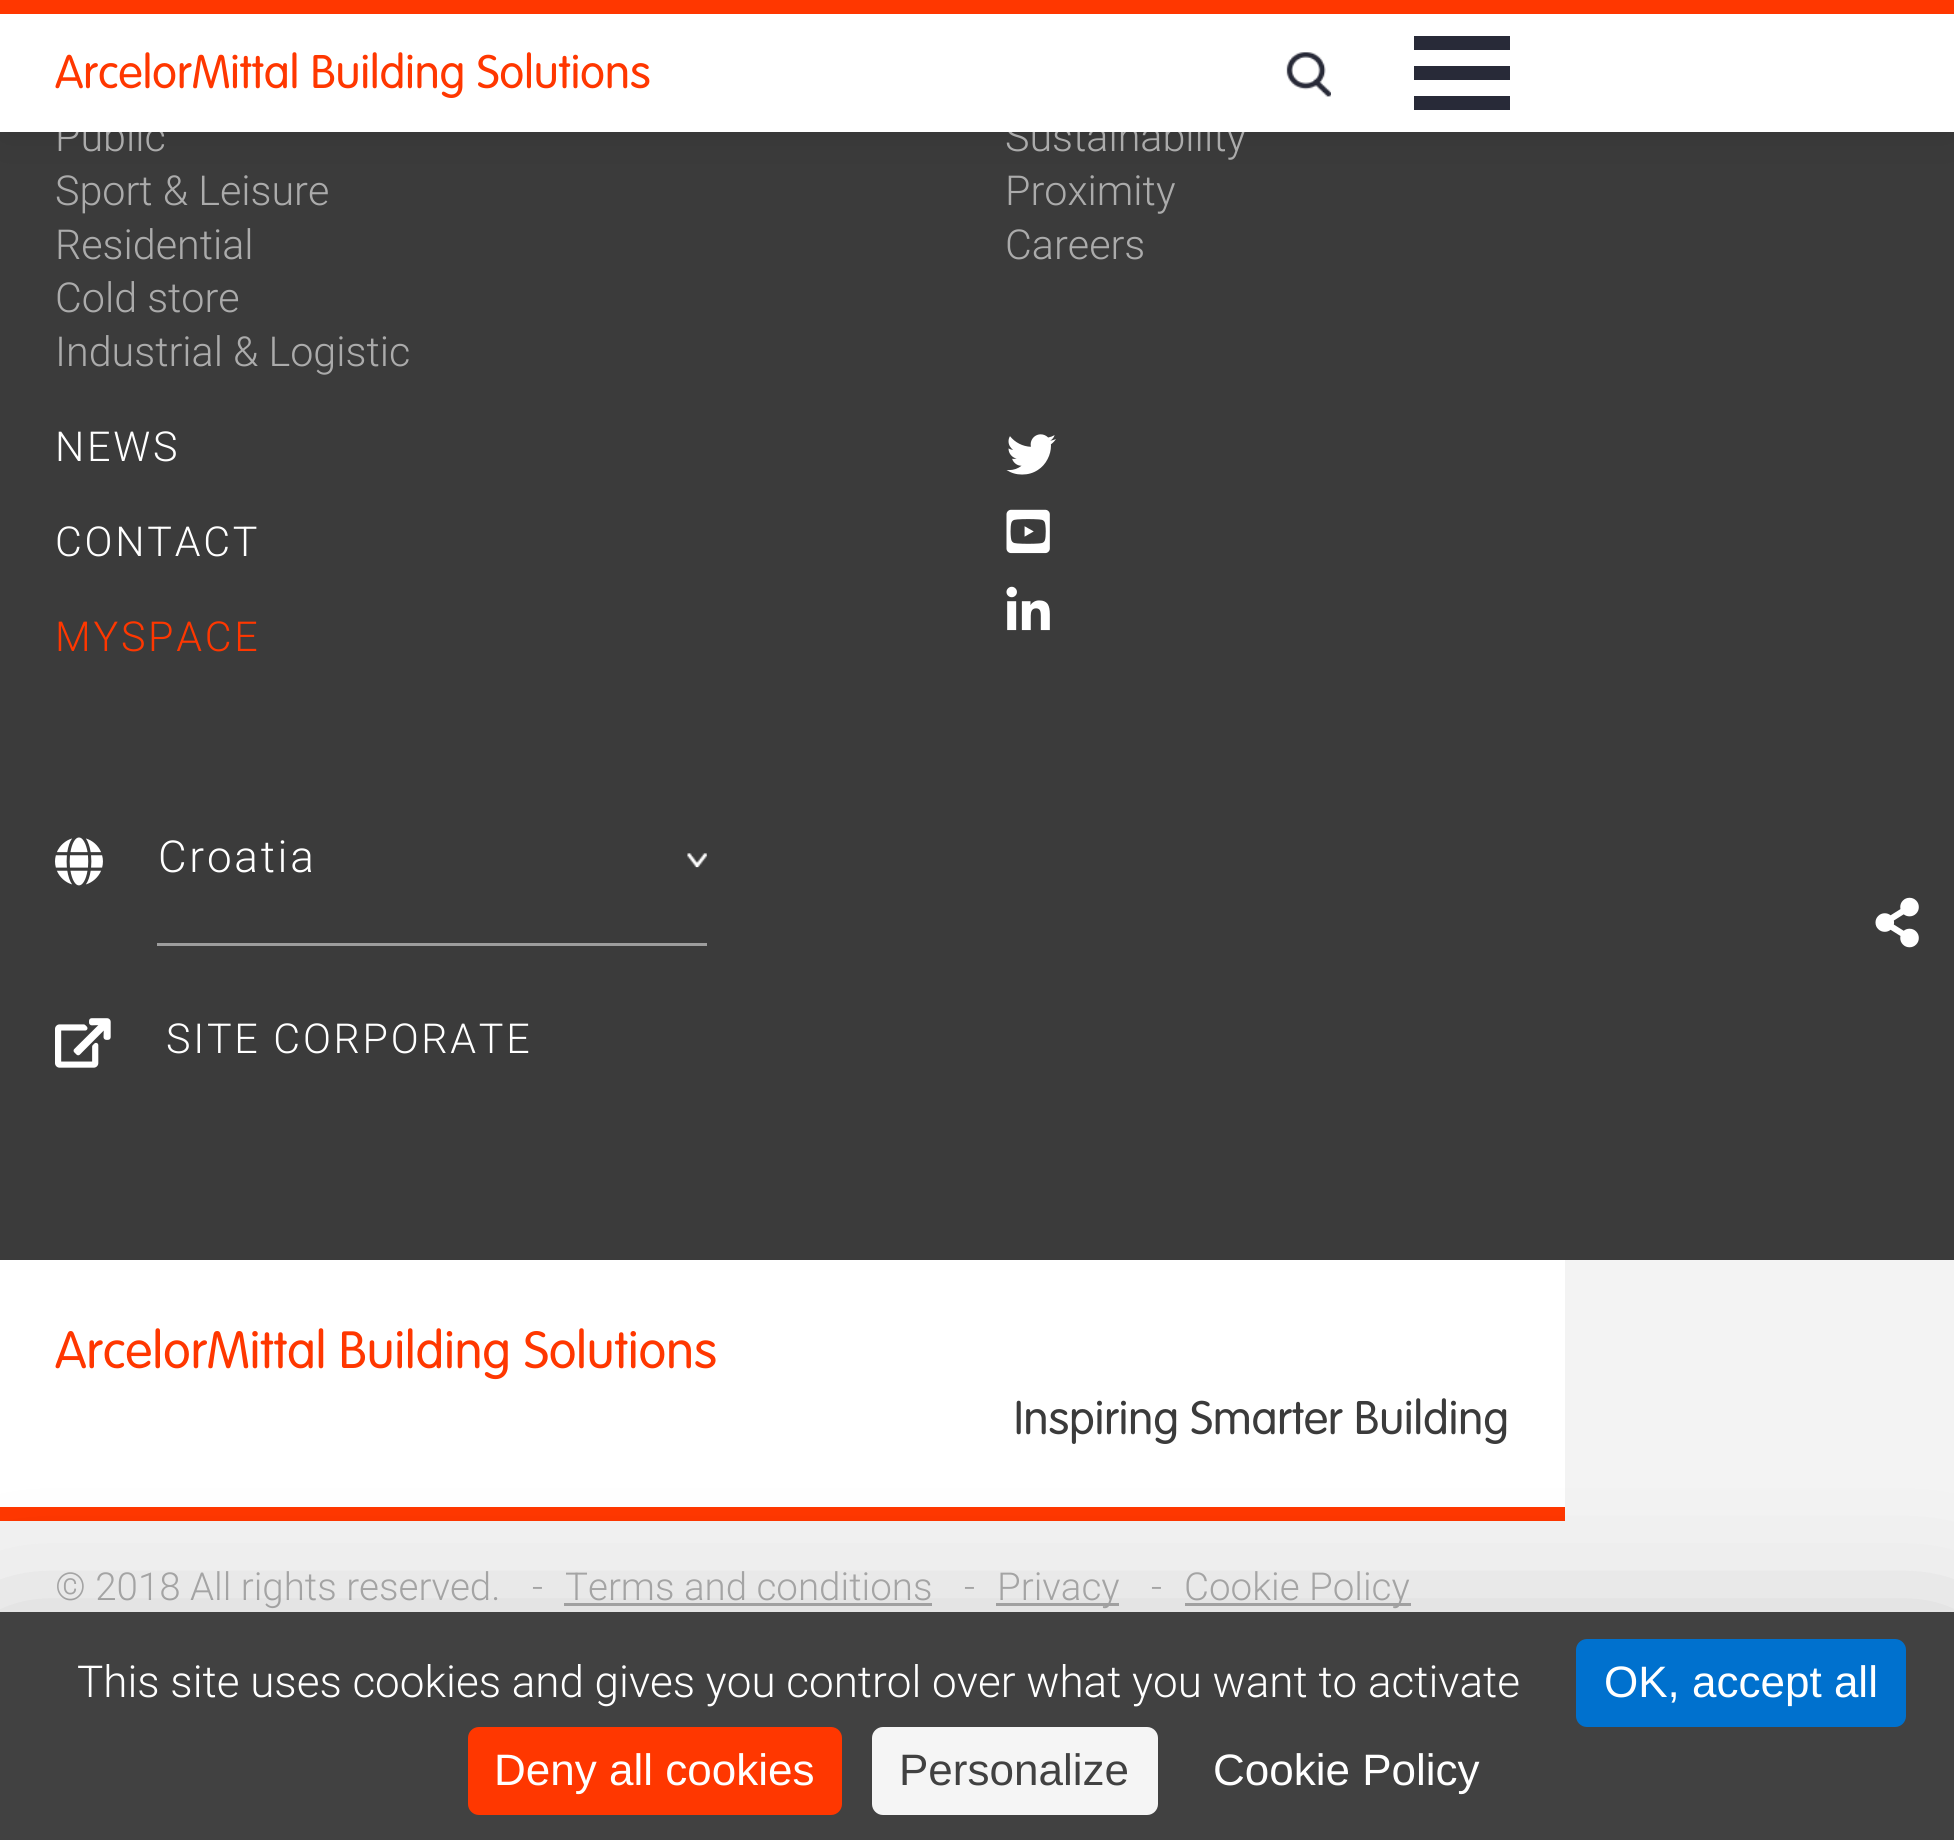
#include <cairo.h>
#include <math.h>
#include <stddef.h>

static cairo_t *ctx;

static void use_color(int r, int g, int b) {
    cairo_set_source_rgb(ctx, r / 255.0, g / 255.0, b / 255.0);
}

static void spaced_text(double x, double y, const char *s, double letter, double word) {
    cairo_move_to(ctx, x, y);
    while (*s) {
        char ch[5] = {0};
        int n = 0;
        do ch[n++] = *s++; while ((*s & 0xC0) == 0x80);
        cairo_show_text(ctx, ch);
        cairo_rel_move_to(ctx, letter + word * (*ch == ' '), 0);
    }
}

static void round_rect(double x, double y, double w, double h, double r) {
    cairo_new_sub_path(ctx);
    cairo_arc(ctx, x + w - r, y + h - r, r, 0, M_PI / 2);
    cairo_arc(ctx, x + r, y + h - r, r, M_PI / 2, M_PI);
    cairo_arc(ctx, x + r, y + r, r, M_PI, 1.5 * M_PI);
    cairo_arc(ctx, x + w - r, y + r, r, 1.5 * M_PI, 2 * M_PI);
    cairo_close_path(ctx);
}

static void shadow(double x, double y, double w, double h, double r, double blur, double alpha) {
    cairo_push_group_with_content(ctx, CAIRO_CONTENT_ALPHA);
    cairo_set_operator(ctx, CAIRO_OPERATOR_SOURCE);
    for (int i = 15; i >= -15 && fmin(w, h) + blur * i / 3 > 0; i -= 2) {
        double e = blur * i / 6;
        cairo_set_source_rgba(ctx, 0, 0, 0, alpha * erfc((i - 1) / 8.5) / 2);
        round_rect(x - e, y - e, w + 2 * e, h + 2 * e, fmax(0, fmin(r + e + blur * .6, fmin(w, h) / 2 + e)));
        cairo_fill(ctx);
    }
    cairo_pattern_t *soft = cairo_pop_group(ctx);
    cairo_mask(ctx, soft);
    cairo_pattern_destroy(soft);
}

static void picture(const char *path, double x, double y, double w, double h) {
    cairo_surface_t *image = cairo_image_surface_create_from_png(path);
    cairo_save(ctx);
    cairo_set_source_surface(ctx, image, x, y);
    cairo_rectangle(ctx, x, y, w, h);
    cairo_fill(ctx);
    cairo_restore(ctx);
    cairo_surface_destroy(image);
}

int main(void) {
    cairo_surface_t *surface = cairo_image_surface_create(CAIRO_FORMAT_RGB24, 1954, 1840);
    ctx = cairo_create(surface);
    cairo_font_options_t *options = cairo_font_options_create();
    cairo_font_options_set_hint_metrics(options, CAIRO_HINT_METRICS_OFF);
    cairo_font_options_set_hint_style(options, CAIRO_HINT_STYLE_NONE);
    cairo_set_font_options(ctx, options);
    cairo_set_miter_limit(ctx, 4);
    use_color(59, 59, 59);
    cairo_paint(ctx);
    use_color(0, 0, 0);
    shadow(0, 0, 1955, 132, 0, 27.5, 0.1);
    cairo_select_font_face(ctx, "Roboto Light", CAIRO_FONT_SLANT_NORMAL, CAIRO_FONT_WEIGHT_NORMAL);
    cairo_set_font_size(ctx, 41.25);
    use_color(171, 171, 171);
    cairo_move_to(ctx, 55, 151);
    cairo_show_text(ctx, "Public");
    cairo_move_to(ctx, 1005, 151);
    cairo_show_text(ctx, "Sustainability");
    use_color(255, 255, 255);
    cairo_rectangle(ctx, 0, 14, 1954, 118);
    cairo_fill(ctx);
    use_color(255, 55, 0);
    cairo_rectangle(ctx, 0, 0, 1954, 14);
    cairo_fill(ctx);
    cairo_select_font_face(ctx, "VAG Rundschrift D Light", CAIRO_FONT_SLANT_NORMAL, CAIRO_FONT_WEIGHT_NORMAL);
    cairo_set_font_size(ctx, 49.5);
    cairo_move_to(ctx, 55, 88);
    cairo_show_text(ctx, "ArcelorMittal Building Solutions");
    picture("img1.png", 1286, 52, 45, 45);
    use_color(40, 42, 56);
    cairo_rectangle(ctx, 1414, 36, 96, 14);
    cairo_fill(ctx);
    cairo_rectangle(ctx, 1414, 66, 96, 14);
    cairo_fill(ctx);
    cairo_rectangle(ctx, 1414, 96, 96, 14);
    cairo_fill(ctx);
    cairo_select_font_face(ctx, "Roboto Light", CAIRO_FONT_SLANT_NORMAL, CAIRO_FONT_WEIGHT_NORMAL);
    cairo_set_font_size(ctx, 41.25);
    use_color(171, 171, 171);
    cairo_move_to(ctx, 55, 205);
    cairo_show_text(ctx, "Sport & Leisure");
    cairo_move_to(ctx, 55, 259);
    cairo_show_text(ctx, "Residential");
    cairo_move_to(ctx, 55, 312);
    cairo_show_text(ctx, "Cold store");
    cairo_move_to(ctx, 55, 366);
    cairo_show_text(ctx, "Industrial & Logistic");
    cairo_move_to(ctx, 1005, 205);
    cairo_show_text(ctx, "Proximity");
    cairo_move_to(ctx, 1005, 259);
    cairo_show_text(ctx, "Careers");
    use_color(255, 255, 255);
    spaced_text(55, 461, "NEWS", 2.75, 0);
    spaced_text(55, 556, "CONTACT", 2.75, 0);
    use_color(255, 55, 0);
    spaced_text(55, 651, "MYSPACE", 2.75, 0);
    picture("img2.png", 1006, 434, 50, 41);
    picture("img3.png", 1006, 509, 44, 45);
    picture("img4.png", 1006, 586, 44, 45);
    picture("img5.png", 55, 837, 48, 49);
    use_color(157, 157, 157);
    cairo_rectangle(ctx, 157, 943, 550, 3);
    cairo_fill(ctx);
    cairo_set_font_size(ctx, 44);
    use_color(255, 255, 255);
    spaced_text(158, 872, "Croatia", 2.75, 0);
    picture("img6.png", 687, 853, 20, 15);
    picture("img7.png", 55, 1018, 56, 50);
    cairo_set_font_size(ctx, 41.25);
    spaced_text(166, 1053, "SITE CORPORATE", 2.75, 0);
    use_color(243, 243, 243);
    cairo_rectangle(ctx, 0, 1260, 1954, 352);
    cairo_fill(ctx);
    use_color(255, 255, 255);
    cairo_rectangle(ctx, 0, 1260, 1565, 247);
    cairo_fill(ctx);
    use_color(255, 55, 0);
    cairo_rectangle(ctx, 0, 1507, 1565, 14);
    cairo_fill(ctx);
    cairo_select_font_face(ctx, "VAG Rundschrift D Light", CAIRO_FONT_SLANT_NORMAL, CAIRO_FONT_WEIGHT_NORMAL);
    cairo_set_font_size(ctx, 55);
    cairo_move_to(ctx, 55, 1368);
    cairo_show_text(ctx, "ArcelorMittal Building Solutions");
    cairo_set_font_size(ctx, 49.5);
    use_color(59, 59, 59);
    cairo_move_to(ctx, 1014, 1434);
    cairo_show_text(ctx, "Inspiring Smarter Building");
    cairo_select_font_face(ctx, "Roboto Light", CAIRO_FONT_SLANT_NORMAL, CAIRO_FONT_WEIGHT_NORMAL);
    cairo_set_font_size(ctx, 38.5);
    use_color(171, 171, 171);
    cairo_move_to(ctx, 55, 1600);
    cairo_show_text(ctx, "© 2018 All rights reserved.");
    cairo_move_to(ctx, 532, 1600);
    cairo_show_text(ctx, "-");
    cairo_move_to(ctx, 565, 1600);
    cairo_show_text(ctx, "Terms and conditions");
    cairo_rectangle(ctx, 564, 1603, 368, 3);
    cairo_fill(ctx);
    cairo_move_to(ctx, 964, 1600);
    cairo_show_text(ctx, "-");
    cairo_rectangle(ctx, 996, 1603, 123, 3);
    cairo_fill(ctx);
    cairo_move_to(ctx, 997, 1600);
    cairo_show_text(ctx, "Privacy");
    cairo_move_to(ctx, 1151, 1600);
    cairo_show_text(ctx, "-");
    cairo_rectangle(ctx, 1185, 1603, 226, 3);
    cairo_fill(ctx);
    cairo_move_to(ctx, 1184, 1600);
    cairo_show_text(ctx, "Cookie Policy");
    picture("img8.png", 1875, 897, 44, 51);
    use_color(0, 0, 0);
    shadow(0, 1667, 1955, 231, 0, 82.5, 0.25);
    use_color(65, 65, 65);
    cairo_rectangle(ctx, 0, 1612, 1954, 228);
    cairo_fill(ctx);
    cairo_set_font_size(ctx, 44);
    use_color(255, 255, 255);
    cairo_move_to(ctx, 77, 1697);
    cairo_show_text(ctx, "This site uses cookies and gives you control over what you want to activate");
    use_color(0, 113, 206);
    round_rect(1576, 1639, 330, 88, 11);
    cairo_fill(ctx);
    cairo_select_font_face(ctx, "Liberation Sans", CAIRO_FONT_SLANT_NORMAL, CAIRO_FONT_WEIGHT_NORMAL);
    use_color(255, 255, 255);
    cairo_move_to(ctx, 1604, 1697);
    cairo_show_text(ctx, "OK, accept all");
    use_color(255, 55, 0);
    round_rect(468, 1727, 374, 88, 11);
    cairo_fill(ctx);
    use_color(255, 255, 255);
    cairo_move_to(ctx, 494, 1785);
    cairo_show_text(ctx, "Deny all cookies");
    use_color(245, 245, 245);
    round_rect(872, 1727, 286, 88, 11);
    cairo_fill(ctx);
    use_color(65, 65, 65);
    cairo_move_to(ctx, 899, 1785);
    cairo_show_text(ctx, "Personalize");
    use_color(255, 255, 255);
    cairo_move_to(ctx, 1213, 1785);
    cairo_show_text(ctx, "Cookie Policy");
    cairo_surface_write_to_png(surface, "result.png");
    cairo_font_options_destroy(options);
    cairo_destroy(ctx);
    cairo_surface_destroy(surface);
    return 0;
}
